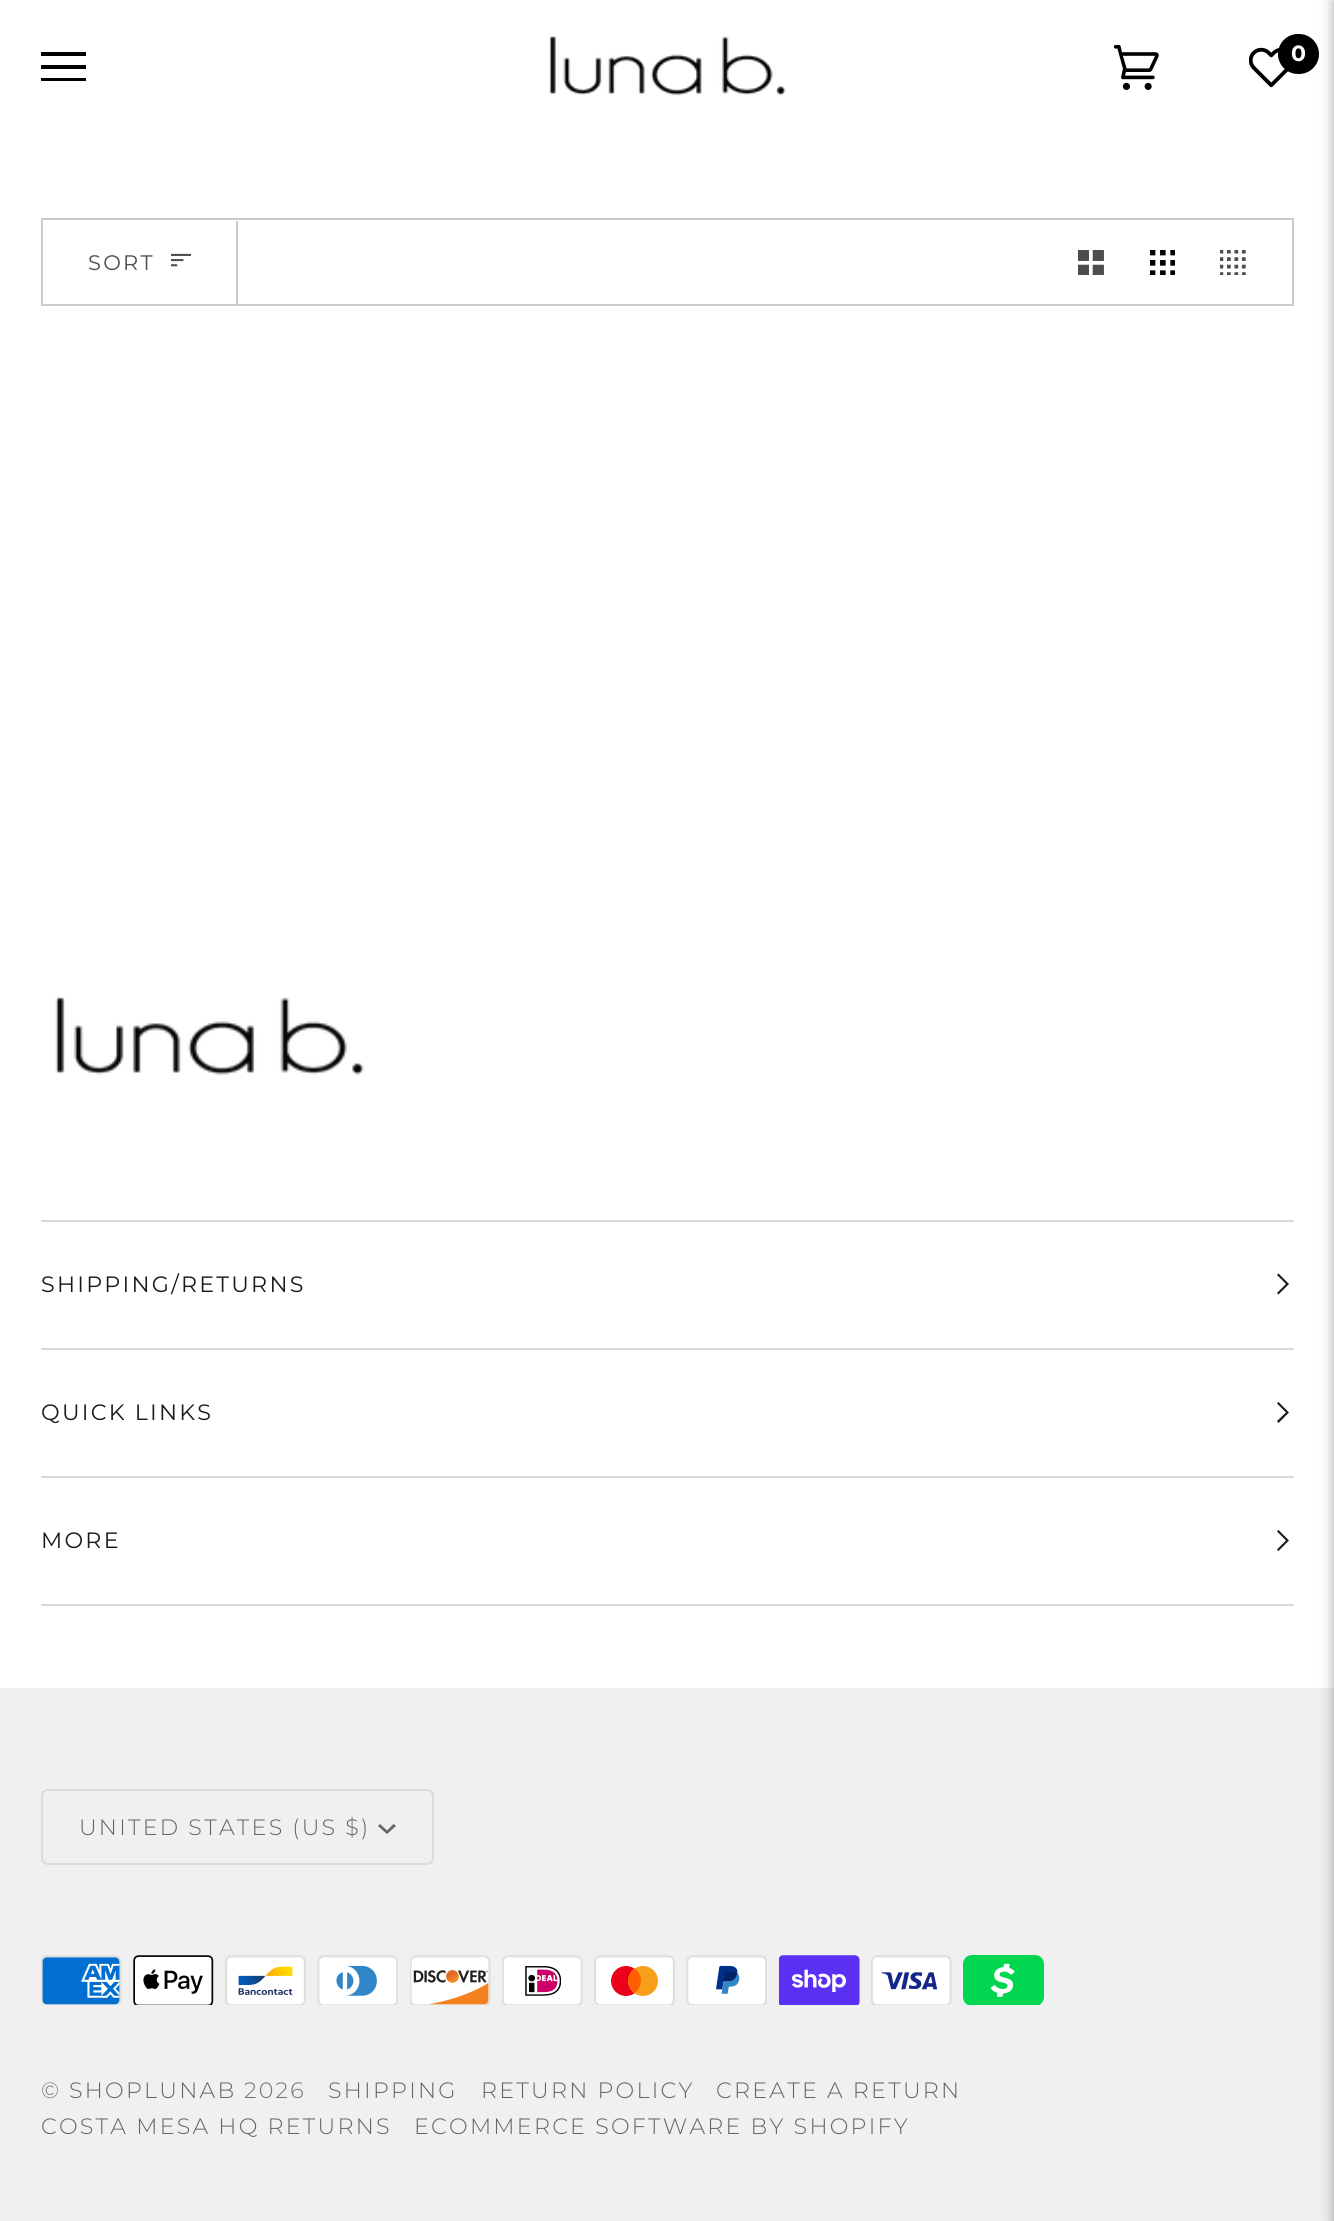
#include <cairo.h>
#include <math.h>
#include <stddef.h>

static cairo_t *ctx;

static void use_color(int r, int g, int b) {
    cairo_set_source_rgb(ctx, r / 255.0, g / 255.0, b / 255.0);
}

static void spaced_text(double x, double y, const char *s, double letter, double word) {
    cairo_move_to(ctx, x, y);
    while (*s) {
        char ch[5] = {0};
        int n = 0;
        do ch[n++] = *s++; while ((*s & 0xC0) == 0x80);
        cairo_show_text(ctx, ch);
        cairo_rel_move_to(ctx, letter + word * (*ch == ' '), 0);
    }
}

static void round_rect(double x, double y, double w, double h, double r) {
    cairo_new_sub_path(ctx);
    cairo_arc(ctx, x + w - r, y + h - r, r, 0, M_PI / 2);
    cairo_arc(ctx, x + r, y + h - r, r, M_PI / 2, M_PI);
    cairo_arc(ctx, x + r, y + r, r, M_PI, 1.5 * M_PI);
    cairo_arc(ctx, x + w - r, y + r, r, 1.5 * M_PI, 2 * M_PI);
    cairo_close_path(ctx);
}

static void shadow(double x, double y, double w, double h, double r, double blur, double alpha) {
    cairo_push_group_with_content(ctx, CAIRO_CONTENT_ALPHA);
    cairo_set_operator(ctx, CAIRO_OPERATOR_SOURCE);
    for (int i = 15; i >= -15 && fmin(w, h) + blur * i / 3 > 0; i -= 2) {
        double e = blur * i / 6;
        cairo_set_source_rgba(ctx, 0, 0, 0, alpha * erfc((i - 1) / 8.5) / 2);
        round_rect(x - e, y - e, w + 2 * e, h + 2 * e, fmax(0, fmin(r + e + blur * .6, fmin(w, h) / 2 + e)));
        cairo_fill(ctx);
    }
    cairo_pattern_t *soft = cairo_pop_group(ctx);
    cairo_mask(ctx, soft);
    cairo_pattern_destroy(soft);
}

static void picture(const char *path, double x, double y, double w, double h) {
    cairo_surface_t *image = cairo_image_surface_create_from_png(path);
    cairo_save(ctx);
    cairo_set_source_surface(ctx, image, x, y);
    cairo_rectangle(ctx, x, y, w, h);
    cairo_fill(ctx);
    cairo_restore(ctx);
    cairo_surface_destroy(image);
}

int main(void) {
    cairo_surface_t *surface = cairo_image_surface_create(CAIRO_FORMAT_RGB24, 1334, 2221);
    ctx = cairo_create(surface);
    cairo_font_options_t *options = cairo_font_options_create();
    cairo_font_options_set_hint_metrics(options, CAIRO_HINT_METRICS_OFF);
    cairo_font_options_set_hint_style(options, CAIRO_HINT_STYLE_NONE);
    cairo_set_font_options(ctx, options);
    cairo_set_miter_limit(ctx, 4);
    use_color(255, 255, 255);
    cairo_paint(ctx);
    cairo_save(ctx);
    cairo_rectangle(ctx, 41, 34, 45, 67);
    cairo_clip(ctx);
    use_color(0, 0, 0);
    cairo_new_path(ctx);
    cairo_move_to(ctx, 40, 52);
    cairo_line_to(ctx, 86, 52);
    cairo_line_to(ctx, 86, 56);
    cairo_line_to(ctx, 40, 56);
    cairo_close_path(ctx);
    cairo_move_to(ctx, 40, 65);
    cairo_line_to(ctx, 86, 65);
    cairo_line_to(ctx, 86, 69);
    cairo_line_to(ctx, 40, 69);
    cairo_close_path(ctx);
    cairo_move_to(ctx, 40, 78);
    cairo_line_to(ctx, 86, 78);
    cairo_line_to(ctx, 86, 81);
    cairo_line_to(ctx, 40, 81);
    cairo_close_path(ctx);
    cairo_fill(ctx);
    cairo_restore(ctx);
    picture("img1.png", 549, 36, 237, 60);
    picture("img2.png", 1114, 45, 45, 45);
    picture("img3.png", 1249, 47, 40, 41);
    use_color(0, 0, 0);
    round_rect(1278, 34, 41, 40, 20);
    cairo_fill(ctx);
    cairo_select_font_face(ctx, "Montserrat", CAIRO_FONT_SLANT_NORMAL, CAIRO_FONT_WEIGHT_BOLD);
    cairo_set_font_size(ctx, 22);
    use_color(255, 255, 255);
    cairo_move_to(ctx, 1291, 61);
    cairo_show_text(ctx, "0");
    use_color(240, 240, 240);
    cairo_rectangle(ctx, 0, 1688, 1334, 533);
    cairo_fill(ctx);
    use_color(0, 0, 0);
    shadow(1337, 0, 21, 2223, 0, 8, 0.5);
    cairo_rectangle(ctx, 42, 219, 1251, 86);
    use_color(204, 204, 204);
    cairo_stroke(ctx);
    cairo_rectangle(ctx, 236, 221, 2, 83);
    cairo_fill(ctx);
    cairo_select_font_face(ctx, "Montserrat", CAIRO_FONT_SLANT_NORMAL, CAIRO_FONT_WEIGHT_NORMAL);
    cairo_set_font_size(ctx, 21);
    use_color(77, 77, 77);
    spaced_text(88, 270, "SORT", 2.25, 0);
    picture("img4.png", 171, 253, 20, 14);
    picture("img5.png", 1078, 250, 26, 25);
    picture("img6.png", 1150, 250, 25, 25);
    picture("img7.png", 1220, 250, 26, 25);
    picture("img8.png", 55, 997, 309, 78);
    use_color(217, 217, 217);
    cairo_rectangle(ctx, 41, 1220, 1253, 2);
    cairo_fill(ctx);
    cairo_rectangle(ctx, 41, 1348, 1253, 2);
    cairo_fill(ctx);
    cairo_set_font_size(ctx, 22.2);
    use_color(26, 26, 26);
    spaced_text(41, 1292, "SHIPPING/RETURNS", 2.25, 0);
    cairo_set_fill_rule(ctx, CAIRO_FILL_RULE_EVEN_ODD);
    cairo_new_path(ctx);
    cairo_move_to(ctx, 1286, 1284);
    cairo_line_to(ctx, 1277, 1275);
    cairo_line_to(ctx, 1278.5, 1273.5);
    cairo_line_to(ctx, 1289, 1284);
    cairo_line_to(ctx, 1278.5, 1294.5);
    cairo_line_to(ctx, 1277, 1293);
    cairo_close_path(ctx);
    cairo_fill(ctx);
    use_color(217, 217, 217);
    cairo_rectangle(ctx, 41, 1476, 1253, 2);
    cairo_fill(ctx);
    use_color(26, 26, 26);
    spaced_text(41, 1420, "QUICK LINKS", 2.25, 0);
    cairo_new_path(ctx);
    cairo_move_to(ctx, 1286, 1412.5);
    cairo_line_to(ctx, 1277, 1403.5);
    cairo_line_to(ctx, 1278.5, 1402);
    cairo_line_to(ctx, 1289, 1412.5);
    cairo_line_to(ctx, 1278.5, 1423);
    cairo_line_to(ctx, 1277, 1421);
    cairo_close_path(ctx);
    cairo_fill(ctx);
    use_color(217, 217, 217);
    cairo_rectangle(ctx, 41, 1604, 1253, 2);
    cairo_fill(ctx);
    use_color(26, 26, 26);
    spaced_text(41, 1548, "MORE", 2.25, 0);
    cairo_new_path(ctx);
    cairo_move_to(ctx, 1286, 1540.5);
    cairo_line_to(ctx, 1277, 1531.5);
    cairo_line_to(ctx, 1278.5, 1530);
    cairo_line_to(ctx, 1289, 1540.5);
    cairo_line_to(ctx, 1278.5, 1551);
    cairo_line_to(ctx, 1277, 1549.5);
    cairo_close_path(ctx);
    cairo_fill(ctx);
    round_rect(42, 1790, 391, 74, 6);
    use_color(219, 219, 219);
    cairo_stroke(ctx);
    cairo_select_font_face(ctx, "Montserrat Light", CAIRO_FONT_SLANT_NORMAL, CAIRO_FONT_WEIGHT_NORMAL);
    use_color(101, 101, 101);
    spaced_text(79, 1835, "UNITED STATES (US $)", 2.25, 0);
    cairo_new_path(ctx);
    cairo_move_to(ctx, 378, 1826);
    cairo_line_to(ctx, 380, 1824);
    cairo_line_to(ctx, 387, 1830.5);
    cairo_line_to(ctx, 393.5, 1824);
    cairo_line_to(ctx, 396, 1826);
    cairo_line_to(ctx, 387, 1834);
    cairo_close_path(ctx);
    cairo_fill(ctx);
    picture("img9.png", 41, 1955, 81, 50);
    picture("img10.png", 133, 1955, 81, 50);
    picture("img11.png", 225, 1955, 81, 50);
    picture("img12.png", 317, 1955, 81, 50);
    picture("img13.png", 410, 1955, 81, 50);
    picture("img14.png", 502, 1955, 81, 50);
    picture("img15.png", 594, 1955, 81, 50);
    picture("img16.png", 686, 1955, 81, 50);
    picture("img17.png", 779, 1955, 81, 50);
    picture("img18.png", 871, 1955, 81, 50);
    picture("img19.png", 963, 1955, 81, 50);
    use_color(115, 115, 115);
    spaced_text(41, 2098, "©", 2.25, 0);
    use_color(101, 101, 101);
    spaced_text(69, 2098, "SHOPLUNAB", 2.25, 0);
    use_color(115, 115, 115);
    spaced_text(244, 2098, "2026", 2.25, 0);
    use_color(101, 101, 101);
    spaced_text(328, 2098, "SHIPPING", 2.25, 0);
    spaced_text(481, 2098, "RETURN POLICY", 2.25, 0);
    spaced_text(716, 2098, "CREATE A RETURN", 2.25, 0);
    spaced_text(41, 2134, "COSTA MESA HQ RETURNS", 2.25, 0);
    spaced_text(414, 2134, "ECOMMERCE SOFTWARE BY SHOPIFY", 2.25, 0);
    cairo_surface_write_to_png(surface, "result.png");
    cairo_font_options_destroy(options);
    cairo_destroy(ctx);
    cairo_surface_destroy(surface);
    return 0;
}
